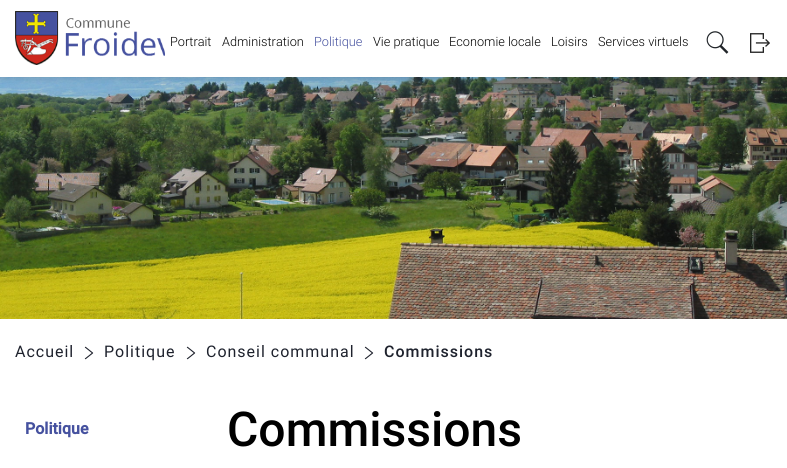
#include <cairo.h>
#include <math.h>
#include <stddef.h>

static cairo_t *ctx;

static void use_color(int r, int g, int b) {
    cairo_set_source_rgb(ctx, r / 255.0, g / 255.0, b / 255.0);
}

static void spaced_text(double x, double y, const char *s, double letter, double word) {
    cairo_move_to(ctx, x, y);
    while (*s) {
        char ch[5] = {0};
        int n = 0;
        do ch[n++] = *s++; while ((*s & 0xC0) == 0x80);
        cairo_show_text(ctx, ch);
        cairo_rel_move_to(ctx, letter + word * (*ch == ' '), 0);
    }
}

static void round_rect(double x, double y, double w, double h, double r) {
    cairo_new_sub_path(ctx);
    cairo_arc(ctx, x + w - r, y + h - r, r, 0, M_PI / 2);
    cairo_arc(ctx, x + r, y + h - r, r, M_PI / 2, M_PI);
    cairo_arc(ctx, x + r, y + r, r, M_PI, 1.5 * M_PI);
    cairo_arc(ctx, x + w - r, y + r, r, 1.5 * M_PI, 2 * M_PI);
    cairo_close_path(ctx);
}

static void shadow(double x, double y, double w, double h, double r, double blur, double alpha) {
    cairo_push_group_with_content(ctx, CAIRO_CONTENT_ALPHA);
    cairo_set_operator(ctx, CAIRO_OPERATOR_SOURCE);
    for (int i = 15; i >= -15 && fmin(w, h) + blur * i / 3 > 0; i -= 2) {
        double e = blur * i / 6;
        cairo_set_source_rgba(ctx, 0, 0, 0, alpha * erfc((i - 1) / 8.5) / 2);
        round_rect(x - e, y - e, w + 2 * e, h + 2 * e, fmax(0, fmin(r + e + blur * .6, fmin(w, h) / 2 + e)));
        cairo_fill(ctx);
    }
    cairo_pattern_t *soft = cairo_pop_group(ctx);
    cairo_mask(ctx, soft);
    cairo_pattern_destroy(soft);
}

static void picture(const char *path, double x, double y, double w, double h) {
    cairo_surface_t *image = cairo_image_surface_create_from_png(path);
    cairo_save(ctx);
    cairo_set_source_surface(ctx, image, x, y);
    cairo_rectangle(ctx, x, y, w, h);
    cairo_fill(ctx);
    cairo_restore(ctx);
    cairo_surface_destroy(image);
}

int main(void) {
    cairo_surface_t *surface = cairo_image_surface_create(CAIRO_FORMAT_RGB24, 787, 468);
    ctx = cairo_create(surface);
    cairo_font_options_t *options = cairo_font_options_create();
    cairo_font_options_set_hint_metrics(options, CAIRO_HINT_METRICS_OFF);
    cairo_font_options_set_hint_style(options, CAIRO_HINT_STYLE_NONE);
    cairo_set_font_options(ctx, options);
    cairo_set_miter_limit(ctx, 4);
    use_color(255, 255, 255);
    cairo_paint(ctx);
    picture("img4.png", 0, 77, 787, 242);
    use_color(0, 0, 0);
    shadow(0, 0, 787, 77, 0, 5, 0.2);
    use_color(255, 255, 255);
    cairo_rectangle(ctx, 0, 0, 787, 77);
    cairo_fill(ctx);
    picture("img1.png", 15, 11, 150, 54);
    cairo_select_font_face(ctx, "Roboto Light", CAIRO_FONT_SLANT_NORMAL, CAIRO_FONT_WEIGHT_NORMAL);
    cairo_set_font_size(ctx, 12.75);
    use_color(0, 0, 0);
    cairo_move_to(ctx, 170, 46);
    cairo_show_text(ctx, "Portrait");
    cairo_move_to(ctx, 222, 46);
    cairo_show_text(ctx, "Administration");
    use_color(69, 81, 159);
    cairo_move_to(ctx, 314, 46);
    cairo_show_text(ctx, "Politique");
    use_color(0, 0, 0);
    cairo_move_to(ctx, 373, 46);
    cairo_show_text(ctx, "Vie pratique");
    cairo_move_to(ctx, 449, 46);
    cairo_show_text(ctx, "Economie locale");
    cairo_move_to(ctx, 551, 46);
    cairo_show_text(ctx, "Loisirs");
    cairo_move_to(ctx, 598, 46);
    cairo_show_text(ctx, "Services virtuels");
    picture("img2.png", 706, 31, 23, 23);
    picture("img3.png", 750, 33, 20, 20);
    cairo_select_font_face(ctx, "Roboto", CAIRO_FONT_SLANT_NORMAL, CAIRO_FONT_WEIGHT_NORMAL);
    cairo_set_font_size(ctx, 16);
    use_color(30, 34, 45);
    spaced_text(15, 357, "Accueil", 1, 0);
    picture("img5.png", 84, 346, 10, 14);
    spaced_text(104, 357, "Politique", 1, 0);
    picture("img5.png", 186, 346, 10, 14);
    spaced_text(206, 357, "Conseil communal", 1, 0);
    picture("img5.png", 364, 346, 10, 14);
    cairo_select_font_face(ctx, "Roboto Medium", CAIRO_FONT_SLANT_NORMAL, CAIRO_FONT_WEIGHT_NORMAL);
    spaced_text(384, 357, "Commissions", 1, 0);
    cairo_select_font_face(ctx, "Roboto", CAIRO_FONT_SLANT_NORMAL, CAIRO_FONT_WEIGHT_BOLD);
    use_color(69, 81, 159);
    cairo_move_to(ctx, 25, 434);
    cairo_show_text(ctx, "Politique");
    cairo_select_font_face(ctx, "Roboto Medium", CAIRO_FONT_SLANT_NORMAL, CAIRO_FONT_WEIGHT_NORMAL);
    cairo_set_font_size(ctx, 48);
    use_color(0, 0, 0);
    cairo_move_to(ctx, 227, 446);
    cairo_show_text(ctx, "Commissions");
    cairo_surface_write_to_png(surface, "result.png");
    cairo_font_options_destroy(options);
    cairo_destroy(ctx);
    cairo_surface_destroy(surface);
    return 0;
}
